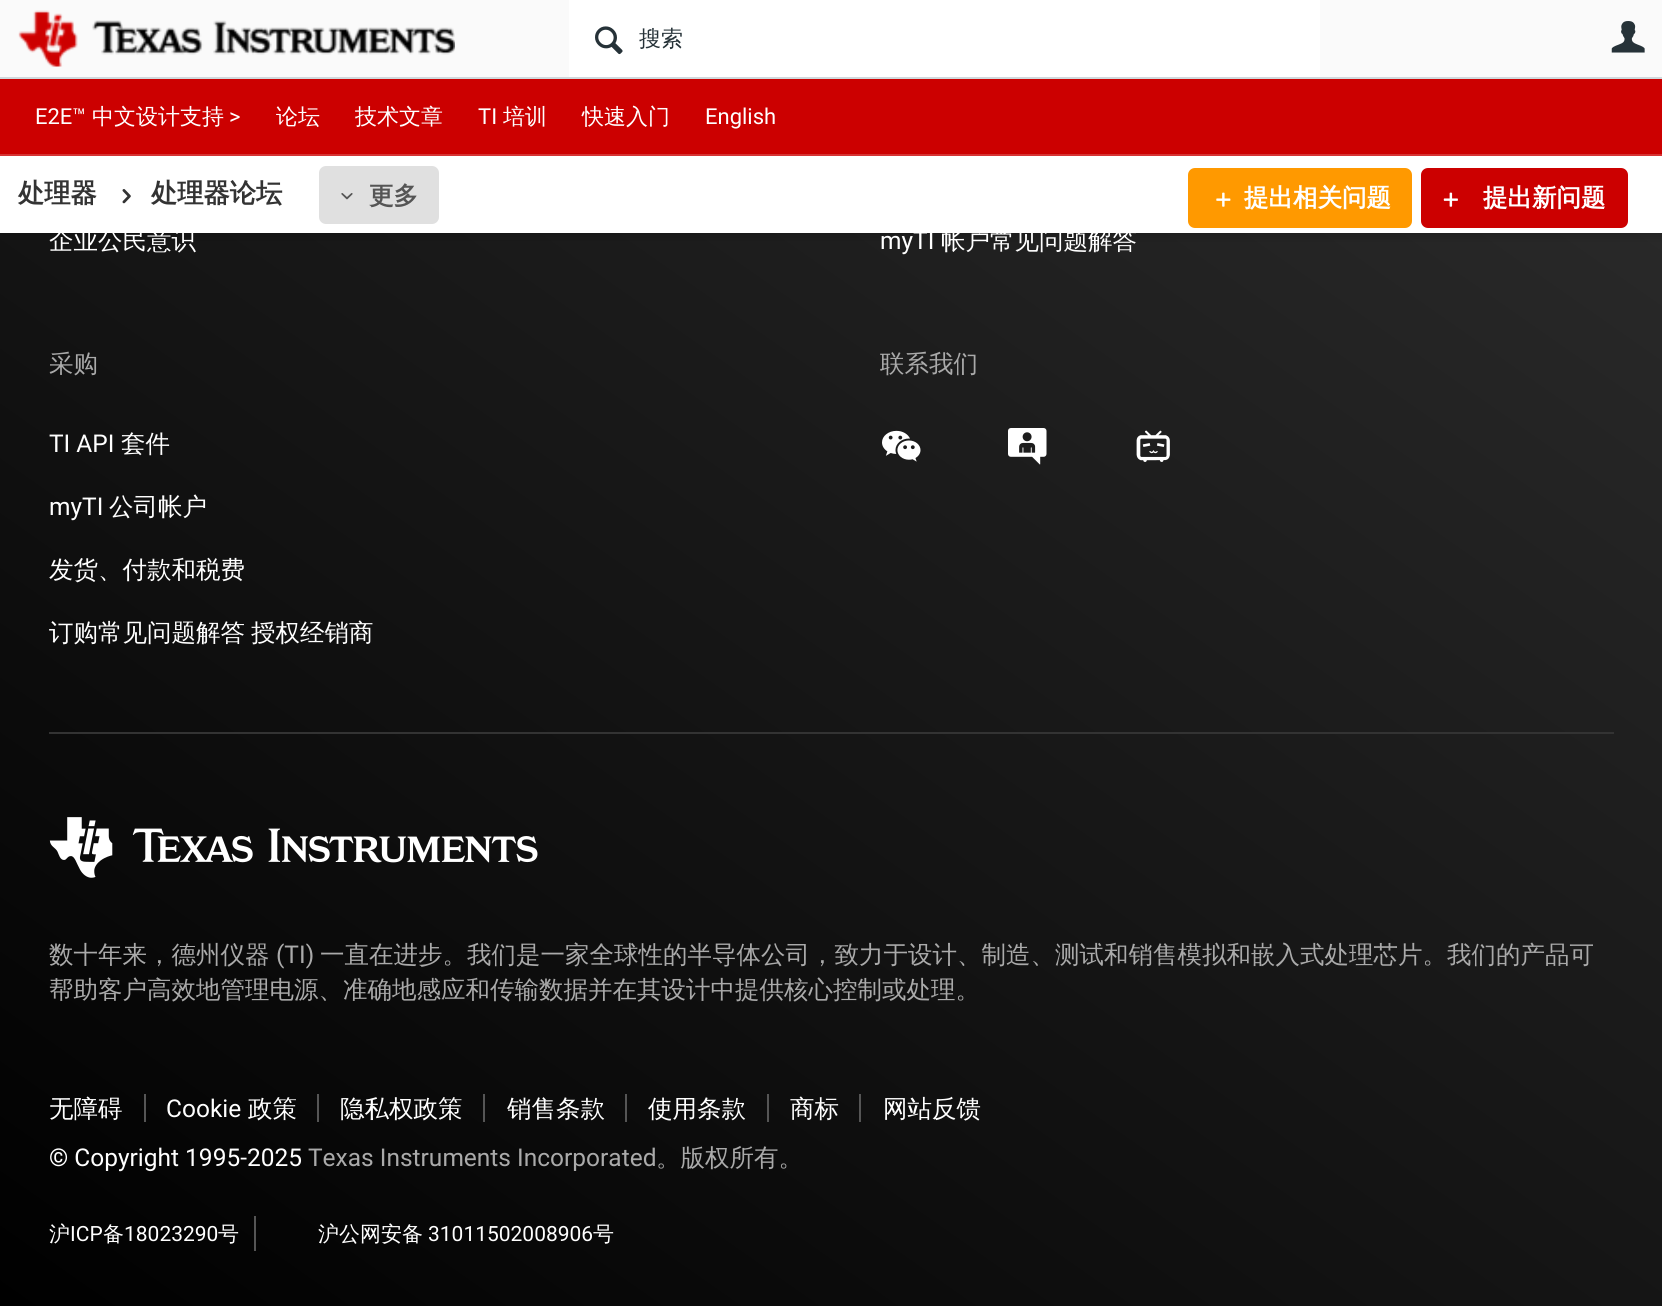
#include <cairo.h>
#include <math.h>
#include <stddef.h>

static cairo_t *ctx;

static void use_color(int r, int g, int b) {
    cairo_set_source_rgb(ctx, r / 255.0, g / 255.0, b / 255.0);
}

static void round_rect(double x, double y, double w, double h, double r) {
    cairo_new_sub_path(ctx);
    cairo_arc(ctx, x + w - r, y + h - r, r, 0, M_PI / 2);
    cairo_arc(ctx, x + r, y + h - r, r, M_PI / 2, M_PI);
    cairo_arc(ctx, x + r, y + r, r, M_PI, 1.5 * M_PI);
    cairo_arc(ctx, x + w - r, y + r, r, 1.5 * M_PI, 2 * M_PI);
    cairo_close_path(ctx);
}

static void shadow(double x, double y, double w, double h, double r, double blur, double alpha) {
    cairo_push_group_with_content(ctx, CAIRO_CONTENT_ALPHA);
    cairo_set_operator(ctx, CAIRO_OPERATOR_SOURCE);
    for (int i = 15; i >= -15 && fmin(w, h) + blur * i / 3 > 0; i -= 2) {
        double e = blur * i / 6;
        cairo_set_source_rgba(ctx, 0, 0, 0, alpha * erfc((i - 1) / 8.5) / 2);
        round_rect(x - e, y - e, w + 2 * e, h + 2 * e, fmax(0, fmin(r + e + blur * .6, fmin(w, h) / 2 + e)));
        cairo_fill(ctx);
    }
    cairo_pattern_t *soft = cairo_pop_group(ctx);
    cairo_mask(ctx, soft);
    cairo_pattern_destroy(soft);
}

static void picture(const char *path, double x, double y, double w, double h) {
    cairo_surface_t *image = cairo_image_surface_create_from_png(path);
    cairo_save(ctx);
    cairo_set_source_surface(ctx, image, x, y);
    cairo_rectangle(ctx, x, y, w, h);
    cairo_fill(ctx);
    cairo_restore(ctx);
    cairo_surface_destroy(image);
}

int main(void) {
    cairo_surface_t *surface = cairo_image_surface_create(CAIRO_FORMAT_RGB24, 1662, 1306);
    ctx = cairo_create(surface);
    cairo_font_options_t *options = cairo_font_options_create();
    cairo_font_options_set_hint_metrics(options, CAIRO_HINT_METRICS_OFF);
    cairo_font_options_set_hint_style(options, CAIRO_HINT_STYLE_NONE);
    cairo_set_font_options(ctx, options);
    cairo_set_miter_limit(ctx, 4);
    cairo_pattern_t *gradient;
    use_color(255, 255, 255);
    cairo_paint(ctx);
    gradient = cairo_pattern_create_linear(175, 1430, 1488, -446);
    cairo_pattern_add_color_stop_rgba(gradient, 0, 0, 0, 0, 1);
    cairo_pattern_add_color_stop_rgba(gradient, 1, 0.2, 0.2, 0.2, 1);
    cairo_set_source(ctx, gradient);
    cairo_pattern_destroy(gradient);
    cairo_rectangle(ctx, 0, 233, 1662, 1073);
    cairo_fill(ctx);
    use_color(0, 0, 0);
    shadow(0, 4, 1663, 232, 0, 4.5, 0.15);
    use_color(255, 255, 255);
    cairo_rectangle(ctx, 0, 156, 1662, 77);
    cairo_fill(ctx);
    use_color(250, 250, 250);
    cairo_rectangle(ctx, 0, 0, 1662, 77);
    cairo_fill(ctx);
    use_color(207, 216, 220);
    cairo_rectangle(ctx, 0, 77, 1662, 2);
    cairo_fill(ctx);
    picture("img1.png", 18, 10, 437, 57);
    use_color(255, 255, 255);
    cairo_rectangle(ctx, 569, 0, 751, 77);
    cairo_fill(ctx);
    picture("img2.png", 595, 26, 28, 29);
    cairo_select_font_face(ctx, "WenQuanYi Zen Hei Medium", CAIRO_FONT_SLANT_NORMAL, CAIRO_FONT_WEIGHT_NORMAL);
    cairo_set_font_size(ctx, 22);
    use_color(38, 50, 56);
    cairo_move_to(ctx, 639, 46);
    cairo_show_text(ctx, "搜索");
    picture("img3.png", 1611, 21, 34, 32);
    use_color(204, 0, 0);
    cairo_rectangle(ctx, 0, 79, 1662, 75);
    cairo_fill(ctx);
    use_color(214, 51, 51);
    cairo_rectangle(ctx, 0, 154, 1662, 2);
    cairo_fill(ctx);
    cairo_select_font_face(ctx, "Roboto", CAIRO_FONT_SLANT_NORMAL, CAIRO_FONT_WEIGHT_NORMAL);
    use_color(255, 255, 255);
    cairo_move_to(ctx, 35, 124);
    cairo_show_text(ctx, "E2E™");
    cairo_select_font_face(ctx, "WenQuanYi Zen Hei Medium", CAIRO_FONT_SLANT_NORMAL, CAIRO_FONT_WEIGHT_NORMAL);
    cairo_move_to(ctx, 92, 124);
    cairo_show_text(ctx, "中文设计支持");
    cairo_select_font_face(ctx, "Roboto", CAIRO_FONT_SLANT_NORMAL, CAIRO_FONT_WEIGHT_NORMAL);
    cairo_move_to(ctx, 229, 124);
    cairo_show_text(ctx, ">");
    cairo_select_font_face(ctx, "WenQuanYi Zen Hei Medium", CAIRO_FONT_SLANT_NORMAL, CAIRO_FONT_WEIGHT_NORMAL);
    cairo_move_to(ctx, 276, 124);
    cairo_show_text(ctx, "论坛");
    cairo_move_to(ctx, 355, 124);
    cairo_show_text(ctx, "技术文章");
    cairo_select_font_face(ctx, "Roboto", CAIRO_FONT_SLANT_NORMAL, CAIRO_FONT_WEIGHT_NORMAL);
    cairo_move_to(ctx, 478, 124);
    cairo_show_text(ctx, "TI");
    cairo_select_font_face(ctx, "WenQuanYi Zen Hei Medium", CAIRO_FONT_SLANT_NORMAL, CAIRO_FONT_WEIGHT_NORMAL);
    cairo_move_to(ctx, 503, 124);
    cairo_show_text(ctx, "培训");
    cairo_move_to(ctx, 582, 124);
    cairo_show_text(ctx, "快速入门");
    cairo_select_font_face(ctx, "Roboto", CAIRO_FONT_SLANT_NORMAL, CAIRO_FONT_WEIGHT_NORMAL);
    cairo_move_to(ctx, 705, 124);
    cairo_show_text(ctx, "English");
    cairo_select_font_face(ctx, "WenQuanYi Zen Hei", CAIRO_FONT_SLANT_NORMAL, CAIRO_FONT_WEIGHT_BOLD);
    cairo_set_font_size(ctx, 26.25);
    use_color(51, 51, 51);
    cairo_move_to(ctx, 18, 202);
    cairo_show_text(ctx, "处理器");
    picture("img4.png", 122, 189, 9, 15);
    cairo_move_to(ctx, 151, 202);
    cairo_show_text(ctx, "处理器论坛");
    use_color(224, 224, 224);
    round_rect(319, 166, 120, 58, 7);
    cairo_fill(ctx);
    picture("img5.png", 341, 193, 12, 7);
    cairo_set_font_size(ctx, 24.5);
    use_color(85, 85, 85);
    cairo_move_to(ctx, 369, 204);
    cairo_show_text(ctx, "更多");
    use_color(255, 153, 0);
    round_rect(1188, 168, 224, 60, 7);
    cairo_fill(ctx);
    picture("img6.png", 1216, 192, 15, 15);
    use_color(255, 255, 255);
    cairo_move_to(ctx, 1244, 206);
    cairo_show_text(ctx, "提出相关问题");
    use_color(204, 0, 0);
    round_rect(1421, 168, 207, 60, 7);
    cairo_fill(ctx);
    picture("img7.png", 1443, 192, 15, 15);
    use_color(255, 255, 255);
    cairo_move_to(ctx, 1483, 206);
    cairo_show_text(ctx, "提出新问题");
    cairo_select_font_face(ctx, "WenQuanYi Zen Hei Medium", CAIRO_FONT_SLANT_NORMAL, CAIRO_FONT_WEIGHT_NORMAL);
    cairo_move_to(ctx, 49, 249);
    cairo_show_text(ctx, "企业公民意识");
    cairo_select_font_face(ctx, "Roboto", CAIRO_FONT_SLANT_NORMAL, CAIRO_FONT_WEIGHT_NORMAL);
    cairo_move_to(ctx, 880, 249);
    cairo_show_text(ctx, "myTI");
    cairo_select_font_face(ctx, "WenQuanYi Zen Hei Medium", CAIRO_FONT_SLANT_NORMAL, CAIRO_FONT_WEIGHT_NORMAL);
    cairo_move_to(ctx, 941, 249);
    cairo_show_text(ctx, "帐户常见问题解答");
    use_color(170, 170, 170);
    cairo_move_to(ctx, 49, 372);
    cairo_show_text(ctx, "采购");
    cairo_select_font_face(ctx, "Roboto", CAIRO_FONT_SLANT_NORMAL, CAIRO_FONT_WEIGHT_NORMAL);
    use_color(255, 255, 255);
    cairo_move_to(ctx, 49, 452);
    cairo_show_text(ctx, "TI API");
    cairo_select_font_face(ctx, "WenQuanYi Zen Hei Medium", CAIRO_FONT_SLANT_NORMAL, CAIRO_FONT_WEIGHT_NORMAL);
    cairo_move_to(ctx, 121, 452);
    cairo_show_text(ctx, "套件");
    cairo_select_font_face(ctx, "Roboto", CAIRO_FONT_SLANT_NORMAL, CAIRO_FONT_WEIGHT_NORMAL);
    cairo_move_to(ctx, 49, 515);
    cairo_show_text(ctx, "myTI");
    cairo_select_font_face(ctx, "WenQuanYi Zen Hei Medium", CAIRO_FONT_SLANT_NORMAL, CAIRO_FONT_WEIGHT_NORMAL);
    cairo_move_to(ctx, 109, 515);
    cairo_show_text(ctx, "公司帐户");
    cairo_move_to(ctx, 49, 578);
    cairo_show_text(ctx, "发货、付款和税费");
    cairo_move_to(ctx, 49, 641);
    cairo_show_text(ctx, "订购常见问题解答");
    cairo_move_to(ctx, 251, 641);
    cairo_show_text(ctx, "授权经销商");
    use_color(170, 170, 170);
    cairo_move_to(ctx, 880, 372);
    cairo_show_text(ctx, "联系我们");
    picture("img8.png", 882, 430, 39, 32);
    picture("img9.png", 1008, 428, 39, 37);
    picture("img10.png", 1136, 430, 34, 32);
    use_color(51, 51, 51);
    cairo_rectangle(ctx, 49, 732, 1565, 2);
    cairo_fill(ctx);
    picture("img11.png", 49, 817, 489, 61);
    use_color(170, 170, 170);
    cairo_move_to(ctx, 49, 963);
    cairo_show_text(ctx, "数十年来，德州仪器");
    cairo_select_font_face(ctx, "Roboto", CAIRO_FONT_SLANT_NORMAL, CAIRO_FONT_WEIGHT_NORMAL);
    cairo_move_to(ctx, 276, 963);
    cairo_show_text(ctx, "(TI)");
    cairo_select_font_face(ctx, "WenQuanYi Zen Hei Medium", CAIRO_FONT_SLANT_NORMAL, CAIRO_FONT_WEIGHT_NORMAL);
    cairo_move_to(ctx, 320, 963);
    cairo_show_text(ctx, "一直在进步。我们是一家全球性的半导体公司，致力于设计、制造、测试和销售模拟和嵌入式处理芯片。我们的产品可");
    cairo_move_to(ctx, 49, 998);
    cairo_show_text(ctx, "帮助客户高效地管理电源、准确地感应和传输数据并在其设计中提供核心控制或处理。");
    use_color(255, 255, 255);
    cairo_move_to(ctx, 49, 1117);
    cairo_show_text(ctx, "无障碍");
    cairo_select_font_face(ctx, "Roboto", CAIRO_FONT_SLANT_NORMAL, CAIRO_FONT_WEIGHT_NORMAL);
    cairo_move_to(ctx, 166, 1117);
    cairo_show_text(ctx, "Cookie");
    use_color(85, 85, 85);
    cairo_rectangle(ctx, 144, 1094, 2, 28);
    cairo_fill(ctx);
    cairo_select_font_face(ctx, "WenQuanYi Zen Hei Medium", CAIRO_FONT_SLANT_NORMAL, CAIRO_FONT_WEIGHT_NORMAL);
    use_color(255, 255, 255);
    cairo_move_to(ctx, 248, 1117);
    cairo_show_text(ctx, "政策");
    cairo_move_to(ctx, 340, 1117);
    cairo_show_text(ctx, "隐私权政策");
    use_color(85, 85, 85);
    cairo_rectangle(ctx, 317, 1094, 2, 28);
    cairo_fill(ctx);
    use_color(255, 255, 255);
    cairo_move_to(ctx, 507, 1117);
    cairo_show_text(ctx, "销售条款");
    use_color(85, 85, 85);
    cairo_rectangle(ctx, 483, 1094, 2, 28);
    cairo_fill(ctx);
    use_color(255, 255, 255);
    cairo_move_to(ctx, 648, 1117);
    cairo_show_text(ctx, "使用条款");
    use_color(85, 85, 85);
    cairo_rectangle(ctx, 625, 1094, 2, 28);
    cairo_fill(ctx);
    use_color(255, 255, 255);
    cairo_move_to(ctx, 790, 1117);
    cairo_show_text(ctx, "商标");
    use_color(85, 85, 85);
    cairo_rectangle(ctx, 767, 1094, 2, 28);
    cairo_fill(ctx);
    use_color(255, 255, 255);
    cairo_move_to(ctx, 883, 1117);
    cairo_show_text(ctx, "网站反馈");
    use_color(85, 85, 85);
    cairo_rectangle(ctx, 859, 1094, 2, 28);
    cairo_fill(ctx);
    cairo_select_font_face(ctx, "Roboto", CAIRO_FONT_SLANT_NORMAL, CAIRO_FONT_WEIGHT_NORMAL);
    use_color(255, 255, 255);
    cairo_move_to(ctx, 49, 1166);
    cairo_show_text(ctx, "© Copyright 1995-2025");
    use_color(170, 170, 170);
    cairo_move_to(ctx, 308, 1166);
    cairo_show_text(ctx, "Texas Instruments Incorporated");
    cairo_select_font_face(ctx, "WenQuanYi Zen Hei Medium", CAIRO_FONT_SLANT_NORMAL, CAIRO_FONT_WEIGHT_NORMAL);
    cairo_move_to(ctx, 656, 1166);
    cairo_show_text(ctx, "。版权所有。");
    use_color(85, 85, 85);
    cairo_rectangle(ctx, 254, 1216, 2, 35);
    cairo_fill(ctx);
    cairo_set_font_size(ctx, 21);
    use_color(255, 255, 255);
    cairo_move_to(ctx, 49, 1241);
    cairo_show_text(ctx, "沪");
    cairo_select_font_face(ctx, "Roboto", CAIRO_FONT_SLANT_NORMAL, CAIRO_FONT_WEIGHT_NORMAL);
    cairo_move_to(ctx, 70, 1241);
    cairo_show_text(ctx, "ICP");
    cairo_select_font_face(ctx, "WenQuanYi Zen Hei Medium", CAIRO_FONT_SLANT_NORMAL, CAIRO_FONT_WEIGHT_NORMAL);
    cairo_move_to(ctx, 103, 1241);
    cairo_show_text(ctx, "备");
    cairo_select_font_face(ctx, "Roboto", CAIRO_FONT_SLANT_NORMAL, CAIRO_FONT_WEIGHT_NORMAL);
    cairo_move_to(ctx, 124, 1241);
    cairo_show_text(ctx, "18023290");
    cairo_select_font_face(ctx, "WenQuanYi Zen Hei Medium", CAIRO_FONT_SLANT_NORMAL, CAIRO_FONT_WEIGHT_NORMAL);
    cairo_move_to(ctx, 218, 1241);
    cairo_show_text(ctx, "号");
    cairo_move_to(ctx, 318, 1241);
    cairo_show_text(ctx, "沪公网安备");
    cairo_select_font_face(ctx, "Roboto", CAIRO_FONT_SLANT_NORMAL, CAIRO_FONT_WEIGHT_NORMAL);
    cairo_move_to(ctx, 428, 1241);
    cairo_show_text(ctx, "31011502008906");
    cairo_select_font_face(ctx, "WenQuanYi Zen Hei Medium", CAIRO_FONT_SLANT_NORMAL, CAIRO_FONT_WEIGHT_NORMAL);
    cairo_move_to(ctx, 593, 1241);
    cairo_show_text(ctx, "号");
    cairo_surface_write_to_png(surface, "result.png");
    cairo_font_options_destroy(options);
    cairo_destroy(ctx);
    cairo_surface_destroy(surface);
    return 0;
}
